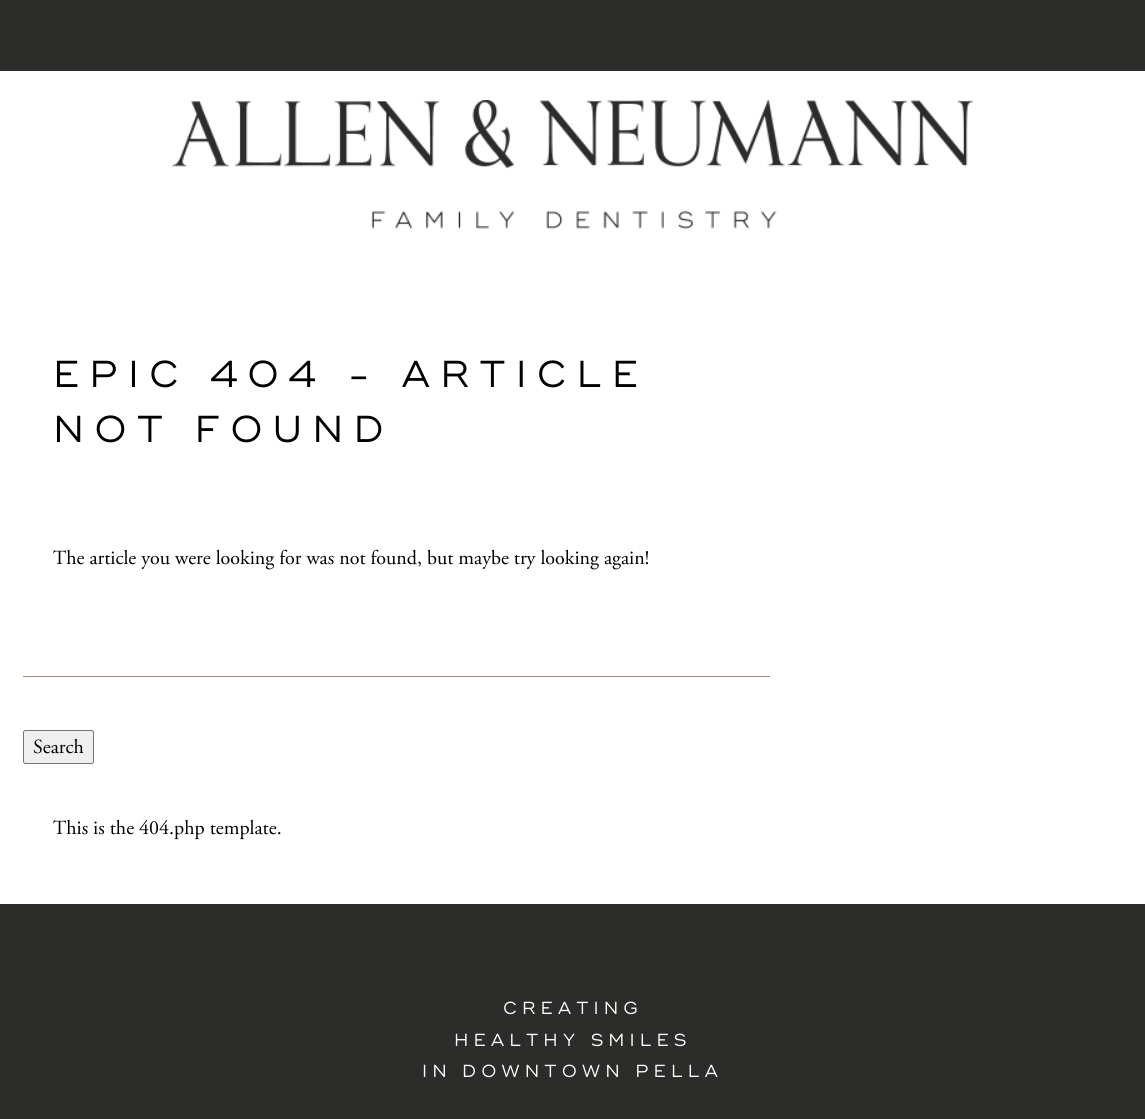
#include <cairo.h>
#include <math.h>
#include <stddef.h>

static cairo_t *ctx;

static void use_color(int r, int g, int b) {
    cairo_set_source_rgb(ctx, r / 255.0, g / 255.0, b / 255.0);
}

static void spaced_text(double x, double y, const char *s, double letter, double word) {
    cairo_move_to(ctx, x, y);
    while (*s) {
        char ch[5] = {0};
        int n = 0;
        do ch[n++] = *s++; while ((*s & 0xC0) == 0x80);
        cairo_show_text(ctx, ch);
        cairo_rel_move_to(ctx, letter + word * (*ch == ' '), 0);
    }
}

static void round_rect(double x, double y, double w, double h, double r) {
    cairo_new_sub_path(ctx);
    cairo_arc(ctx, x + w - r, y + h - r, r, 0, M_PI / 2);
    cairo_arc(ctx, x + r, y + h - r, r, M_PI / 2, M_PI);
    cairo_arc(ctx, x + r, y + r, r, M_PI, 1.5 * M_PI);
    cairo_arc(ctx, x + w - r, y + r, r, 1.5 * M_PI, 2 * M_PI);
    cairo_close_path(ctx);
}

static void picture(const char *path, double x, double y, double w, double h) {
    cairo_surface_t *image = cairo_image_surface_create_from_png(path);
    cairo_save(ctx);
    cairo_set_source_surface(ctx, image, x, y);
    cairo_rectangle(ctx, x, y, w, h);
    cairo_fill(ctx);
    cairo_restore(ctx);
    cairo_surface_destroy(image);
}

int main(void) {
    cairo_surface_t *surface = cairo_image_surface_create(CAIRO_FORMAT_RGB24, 1145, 1119);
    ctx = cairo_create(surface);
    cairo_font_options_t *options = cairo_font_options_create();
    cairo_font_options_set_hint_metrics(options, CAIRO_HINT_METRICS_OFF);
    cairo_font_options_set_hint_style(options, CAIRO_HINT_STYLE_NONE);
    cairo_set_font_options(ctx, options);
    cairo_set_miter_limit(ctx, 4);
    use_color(255, 255, 255);
    cairo_paint(ctx);
    use_color(44, 44, 42);
    cairo_rectangle(ctx, 0, 0, 1145, 71);
    cairo_fill(ctx);
    picture("img1.png", 172, 100, 801, 129);
    cairo_select_font_face(ctx, "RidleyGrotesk", CAIRO_FONT_SLANT_NORMAL, CAIRO_FONT_WEIGHT_NORMAL);
    cairo_set_font_size(ctx, 37.5);
    use_color(0, 0, 0);
    spaced_text(53, 387, "EPIC 404 - ARTICLE", 10, 0);
    spaced_text(53, 442, "NOT FOUND", 10, 0);
    cairo_select_font_face(ctx, "Adobe Garamond", CAIRO_FONT_SLANT_NORMAL, CAIRO_FONT_WEIGHT_NORMAL);
    cairo_set_font_size(ctx, 20);
    cairo_move_to(ctx, 53, 564);
    cairo_show_text(ctx, "The article you were looking for was not found, but maybe try looking again!");
    use_color(166, 139, 114);
    cairo_rectangle(ctx, 23, 676, 747, 1);
    cairo_fill(ctx);
    use_color(239, 239, 239);
    round_rect(23.5, 730.5, 70, 33, 2);
    cairo_fill_preserve(ctx);
    use_color(118, 118, 118);
    cairo_set_line_width(ctx, 1);
    cairo_stroke(ctx);
    use_color(0, 0, 0);
    cairo_move_to(ctx, 33, 753);
    cairo_show_text(ctx, "Search");
    cairo_move_to(ctx, 53, 834);
    cairo_show_text(ctx, "This is the 404.php template.");
    use_color(44, 44, 42);
    cairo_rectangle(ctx, 0, 904, 1145, 215);
    cairo_fill(ctx);
    cairo_select_font_face(ctx, "RidleyGrotesk", CAIRO_FONT_SLANT_NORMAL, CAIRO_FONT_WEIGHT_NORMAL);
    cairo_set_font_size(ctx, 17.5);
    use_color(255, 255, 255);
    spaced_text(503, 1014, "CREATING", 5, 0);
    spaced_text(454, 1046, "HEALTHY SMILES", 5, 0);
    spaced_text(422, 1077, "IN DOWNTOWN PELLA", 5, 0);
    cairo_surface_write_to_png(surface, "result.png");
    cairo_font_options_destroy(options);
    cairo_destroy(ctx);
    cairo_surface_destroy(surface);
    return 0;
}
